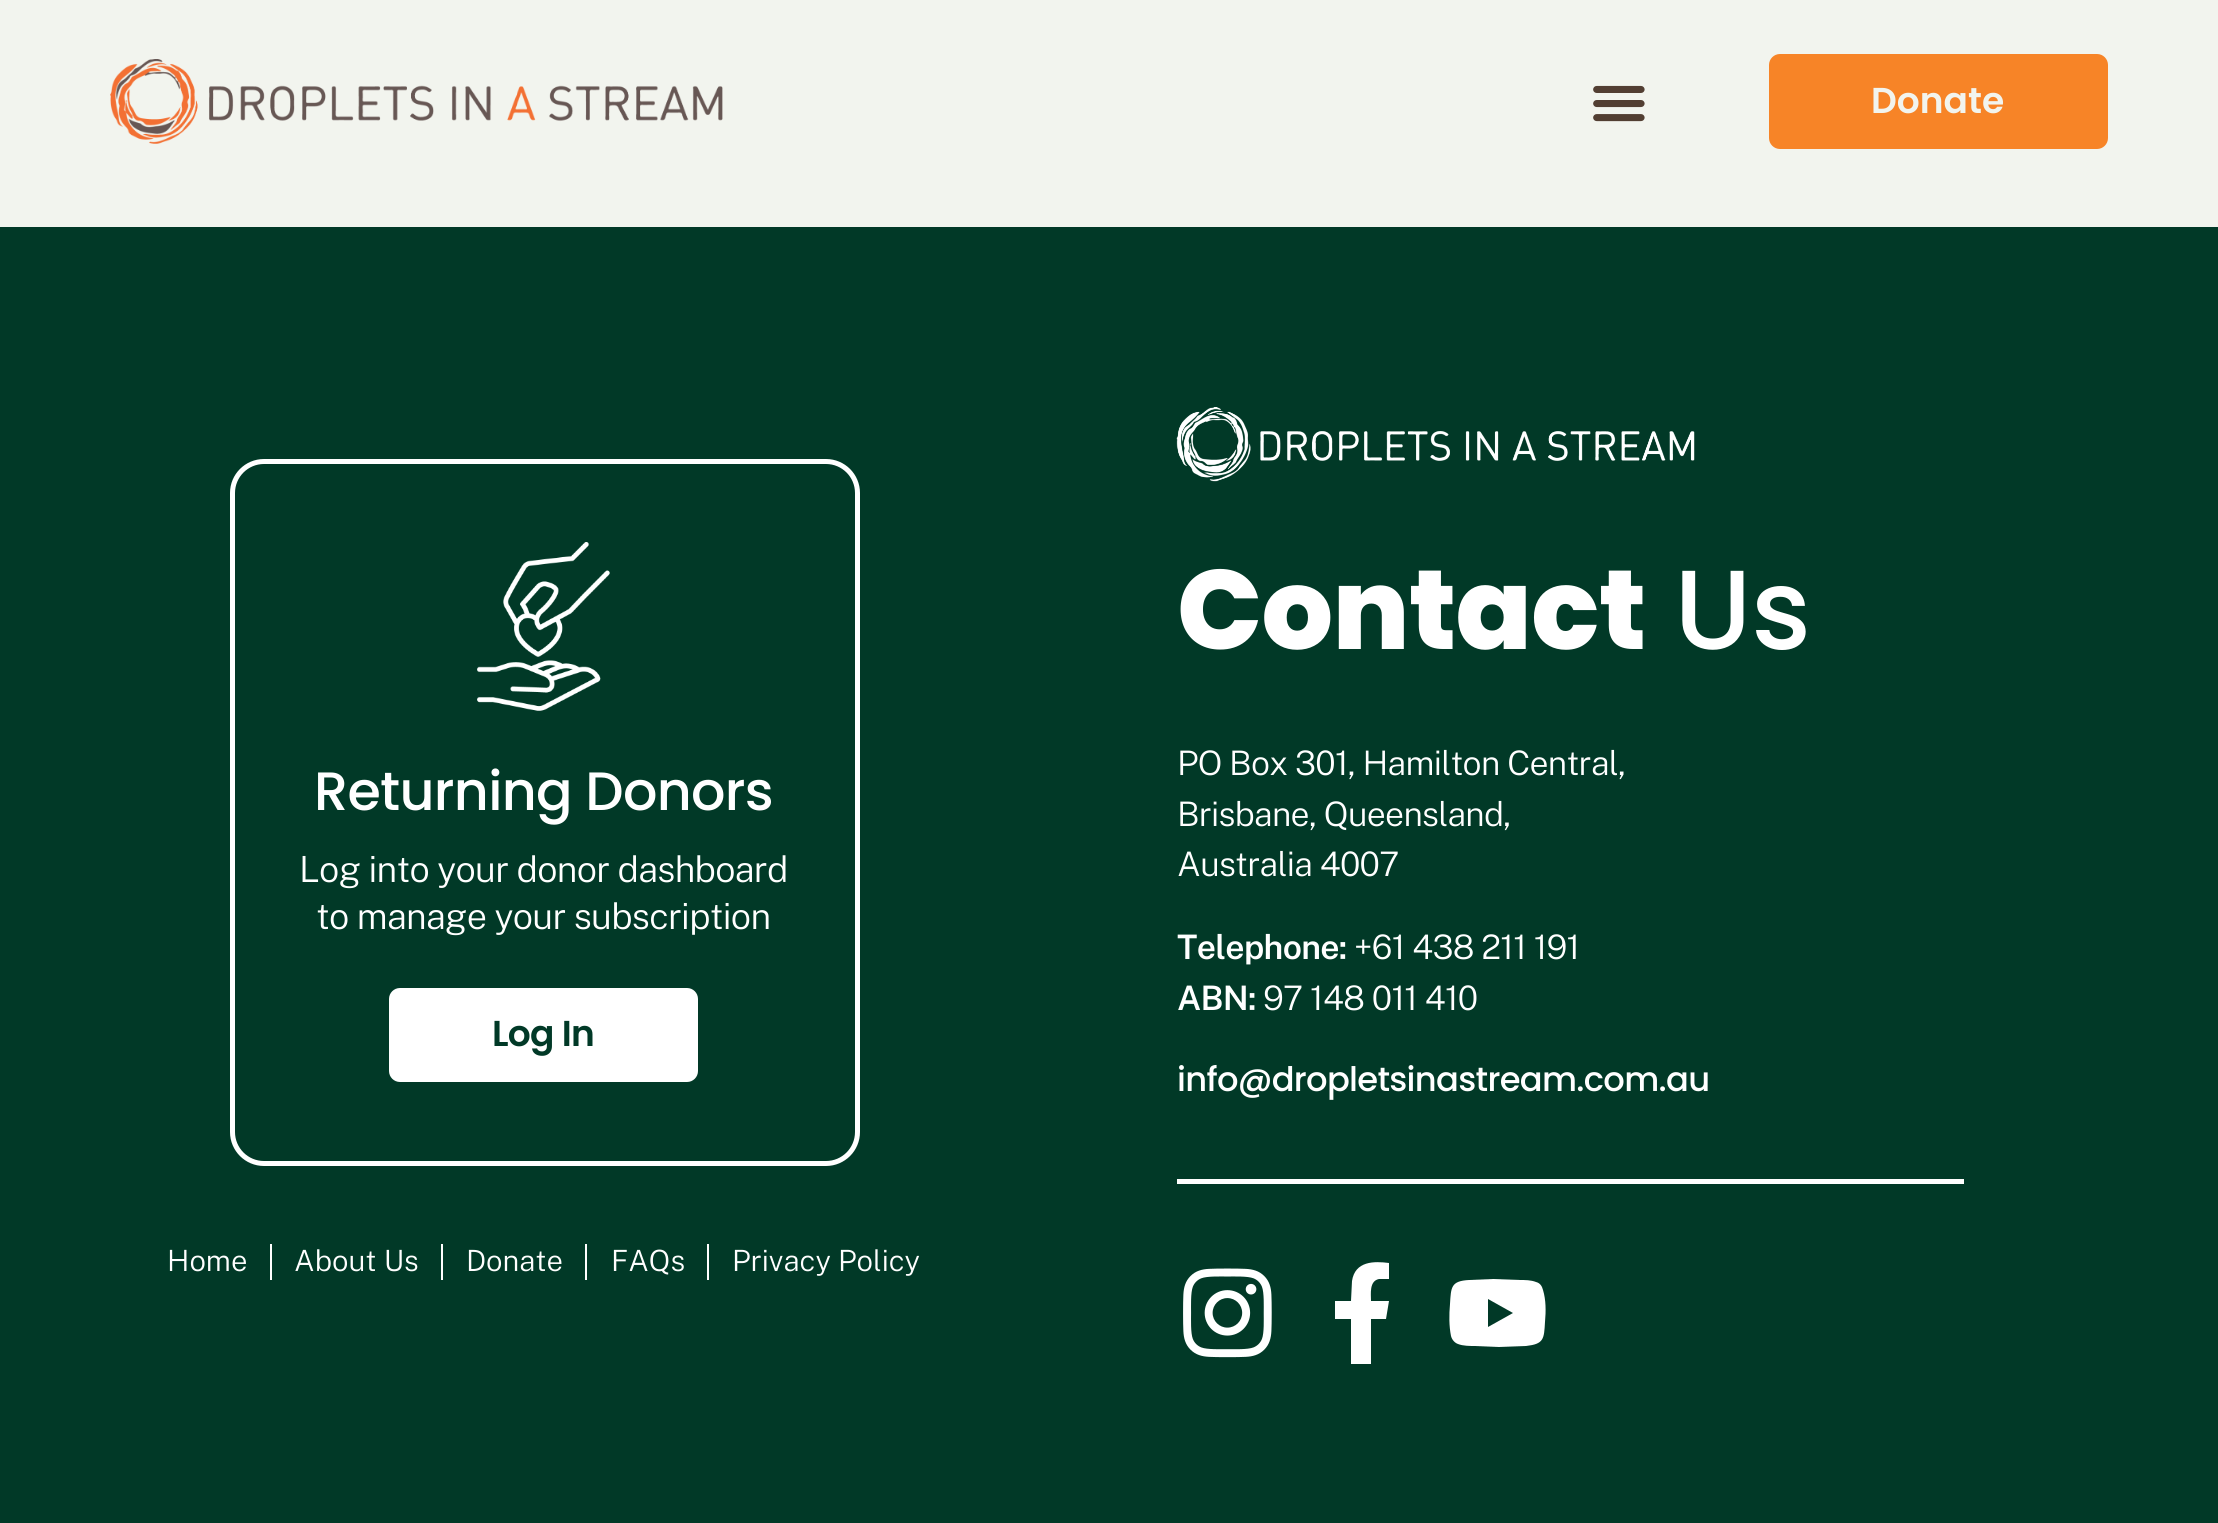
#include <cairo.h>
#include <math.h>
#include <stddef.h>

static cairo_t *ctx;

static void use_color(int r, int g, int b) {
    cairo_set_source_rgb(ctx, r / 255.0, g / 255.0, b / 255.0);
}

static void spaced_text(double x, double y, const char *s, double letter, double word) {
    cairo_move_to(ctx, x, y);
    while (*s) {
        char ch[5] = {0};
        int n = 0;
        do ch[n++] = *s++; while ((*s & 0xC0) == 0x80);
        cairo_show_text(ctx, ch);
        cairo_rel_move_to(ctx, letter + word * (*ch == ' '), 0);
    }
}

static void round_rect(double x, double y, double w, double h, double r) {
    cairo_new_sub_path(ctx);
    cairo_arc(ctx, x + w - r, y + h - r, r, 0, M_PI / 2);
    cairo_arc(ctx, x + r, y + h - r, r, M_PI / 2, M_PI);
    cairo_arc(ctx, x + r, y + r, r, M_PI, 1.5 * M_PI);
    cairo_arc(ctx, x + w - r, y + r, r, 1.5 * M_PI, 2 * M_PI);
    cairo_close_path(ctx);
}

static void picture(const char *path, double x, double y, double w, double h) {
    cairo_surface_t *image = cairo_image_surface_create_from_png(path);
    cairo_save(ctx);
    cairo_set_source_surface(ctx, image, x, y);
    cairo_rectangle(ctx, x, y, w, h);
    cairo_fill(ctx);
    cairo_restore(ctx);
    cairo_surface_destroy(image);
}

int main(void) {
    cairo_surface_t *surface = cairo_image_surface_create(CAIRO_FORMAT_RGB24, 2218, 1523);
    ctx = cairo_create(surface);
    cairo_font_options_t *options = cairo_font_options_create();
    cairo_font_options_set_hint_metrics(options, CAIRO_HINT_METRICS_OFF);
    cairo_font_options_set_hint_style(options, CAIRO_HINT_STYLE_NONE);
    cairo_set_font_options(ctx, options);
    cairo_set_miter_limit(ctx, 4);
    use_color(242, 244, 238);
    cairo_paint(ctx);
    picture("img1.png", 110, 59, 613, 85);
    picture("img2.png", 1593, 85, 52, 37);
    use_color(247, 132, 39);
    round_rect(1770, 55, 337, 93, 10);
    cairo_fill_preserve(ctx);
    cairo_stroke(ctx);
    cairo_select_font_face(ctx, "Poppins SemiBold", CAIRO_FONT_SLANT_NORMAL, CAIRO_FONT_WEIGHT_NORMAL);
    cairo_set_font_size(ctx, 36);
    use_color(242, 244, 238);
    cairo_move_to(ctx, 1871, 113);
    cairo_show_text(ctx, "Donate");
    use_color(1, 57, 39);
    cairo_rectangle(ctx, 0, 227, 2218, 1296);
    cairo_fill(ctx);
    round_rect(232.5, 461.5, 625, 702, 31.5);
    use_color(255, 255, 255);
    cairo_set_line_width(ctx, 5);
    cairo_stroke(ctx);
    picture("img3.png", 477, 542, 133, 169);
    cairo_select_font_face(ctx, "Poppins Medium", CAIRO_FONT_SLANT_NORMAL, CAIRO_FONT_WEIGHT_NORMAL);
    cairo_set_font_size(ctx, 54);
    spaced_text(314, 810, "Returning Donors", -0.7, 0);
    cairo_select_font_face(ctx, "Public Sans Light", CAIRO_FONT_SLANT_NORMAL, CAIRO_FONT_WEIGHT_NORMAL);
    cairo_set_font_size(ctx, 36);
    spaced_text(299, 882, "Log into your donor dashboard", -0.7, 0);
    spaced_text(316, 929, "to manage your subscription", -0.7, 0);
    round_rect(390, 989, 307, 92, 10);
    cairo_fill_preserve(ctx);
    cairo_set_line_width(ctx, 2);
    cairo_stroke(ctx);
    cairo_select_font_face(ctx, "Poppins SemiBold", CAIRO_FONT_SLANT_NORMAL, CAIRO_FONT_WEIGHT_NORMAL);
    use_color(1, 57, 39);
    spaced_text(492, 1046, "Log In", -0.7, 0);
    cairo_select_font_face(ctx, "Public Sans Light", CAIRO_FONT_SLANT_NORMAL, CAIRO_FONT_WEIGHT_NORMAL);
    cairo_set_font_size(ctx, 29.25);
    use_color(255, 255, 255);
    cairo_move_to(ctx, 167, 1271);
    cairo_show_text(ctx, "Home");
    cairo_rectangle(ctx, 270, 1244, 2, 36);
    cairo_fill(ctx);
    cairo_move_to(ctx, 294, 1271);
    cairo_show_text(ctx, "About Us");
    cairo_rectangle(ctx, 441, 1244, 2, 36);
    cairo_fill(ctx);
    cairo_move_to(ctx, 466, 1271);
    cairo_show_text(ctx, "Donate");
    cairo_rectangle(ctx, 585, 1244, 2, 36);
    cairo_fill(ctx);
    cairo_move_to(ctx, 611, 1271);
    cairo_show_text(ctx, "FAQs");
    cairo_rectangle(ctx, 707, 1244, 2, 36);
    cairo_fill(ctx);
    cairo_move_to(ctx, 732, 1271);
    cairo_show_text(ctx, "Privacy Policy");
    picture("img4.png", 1176, 407, 519, 75);
    cairo_select_font_face(ctx, "Poppins ExtraBold", CAIRO_FONT_SLANT_NORMAL, CAIRO_FONT_WEIGHT_NORMAL);
    cairo_set_font_size(ctx, 112.5);
    spaced_text(1177, 649, "Contact", -0.7, 0);
    cairo_select_font_face(ctx, "Poppins Medium", CAIRO_FONT_SLANT_NORMAL, CAIRO_FONT_WEIGHT_NORMAL);
    spaced_text(1674, 649, "Us", -0.7, 0);
    cairo_select_font_face(ctx, "Public Sans Light", CAIRO_FONT_SLANT_NORMAL, CAIRO_FONT_WEIGHT_NORMAL);
    cairo_set_font_size(ctx, 33.75);
    spaced_text(1177, 775, "PO Box 301, Hamilton Central,", -0.7, 0);
    spaced_text(1177, 826, "Brisbane, Queensland,", -0.7, 0);
    spaced_text(1177, 876, "Australia 4007", -0.7, 0);
    cairo_select_font_face(ctx, "Public Sans SemiBold", CAIRO_FONT_SLANT_NORMAL, CAIRO_FONT_WEIGHT_NORMAL);
    spaced_text(1177, 959, "Telephone:", -0.7, 0);
    cairo_select_font_face(ctx, "Public Sans Light", CAIRO_FONT_SLANT_NORMAL, CAIRO_FONT_WEIGHT_NORMAL);
    spaced_text(1354, 959, "+61 438 211 191", -0.7, 0);
    cairo_select_font_face(ctx, "Public Sans SemiBold", CAIRO_FONT_SLANT_NORMAL, CAIRO_FONT_WEIGHT_NORMAL);
    spaced_text(1177, 1010, "ABN:", -0.7, 0);
    cairo_select_font_face(ctx, "Public Sans Light", CAIRO_FONT_SLANT_NORMAL, CAIRO_FONT_WEIGHT_NORMAL);
    spaced_text(1263, 1010, "97 148 011 410", -0.7, 0);
    cairo_select_font_face(ctx, "Poppins Medium", CAIRO_FONT_SLANT_NORMAL, CAIRO_FONT_WEIGHT_NORMAL);
    spaced_text(1177, 1091, "info@dropletsinastream.com.au", -0.7, 0);
    cairo_rectangle(ctx, 1177, 1179, 787, 5);
    cairo_fill(ctx);
    picture("img5.png", 1183, 1268, 89, 90);
    cairo_new_path(ctx);
    cairo_move_to(ctx, 1386, 1319);
    cairo_line_to(ctx, 1389, 1301);
    cairo_line_to(ctx, 1371, 1301);
    cairo_curve_to(ctx, 1371, 1294, 1369, 1281, 1379, 1279);
    cairo_line_to(ctx, 1389, 1279);
    cairo_line_to(ctx, 1389, 1263);
    cairo_curve_to(ctx, 1374, 1261, 1355, 1261, 1352, 1281);
    cairo_line_to(ctx, 1351, 1301);
    cairo_line_to(ctx, 1335, 1301);
    cairo_line_to(ctx, 1335, 1319);
    cairo_line_to(ctx, 1351, 1319);
    cairo_line_to(ctx, 1351, 1364);
    cairo_line_to(ctx, 1371, 1364);
    cairo_line_to(ctx, 1371, 1319);
    cairo_close_path(ctx);
    cairo_fill(ctx);
    cairo_new_path(ctx);
    cairo_move_to(ctx, 1543, 1290);
    cairo_curve_to(ctx, 1542, 1286, 1540, 1283, 1536, 1282);
    cairo_curve_to(ctx, 1531, 1280, 1525, 1280, 1520, 1280);
    cairo_line_to(ctx, 1493, 1279);
    cairo_line_to(ctx, 1469, 1280);
    cairo_curve_to(ctx, 1451, 1281, 1451, 1287, 1450, 1304);
    cairo_curve_to(ctx, 1449, 1315, 1449, 1326, 1451, 1336);
    cairo_curve_to(ctx, 1452, 1340, 1455, 1343, 1458, 1344);
    cairo_curve_to(ctx, 1463, 1346, 1470, 1346, 1475, 1346);
    cairo_line_to(ctx, 1499, 1347);
    cairo_line_to(ctx, 1526, 1346);
    cairo_curve_to(ctx, 1544, 1344, 1544, 1339, 1545, 1322);
    cairo_curve_to(ctx, 1546, 1311, 1546, 1300, 1543, 1290);
    cairo_close_path(ctx);
    cairo_move_to(ctx, 1488, 1327);
    cairo_line_to(ctx, 1488, 1299);
    cairo_line_to(ctx, 1513, 1313);
    cairo_close_path(ctx);
    cairo_fill(ctx);
    cairo_surface_write_to_png(surface, "result.png");
    cairo_font_options_destroy(options);
    cairo_destroy(ctx);
    cairo_surface_destroy(surface);
    return 0;
}
